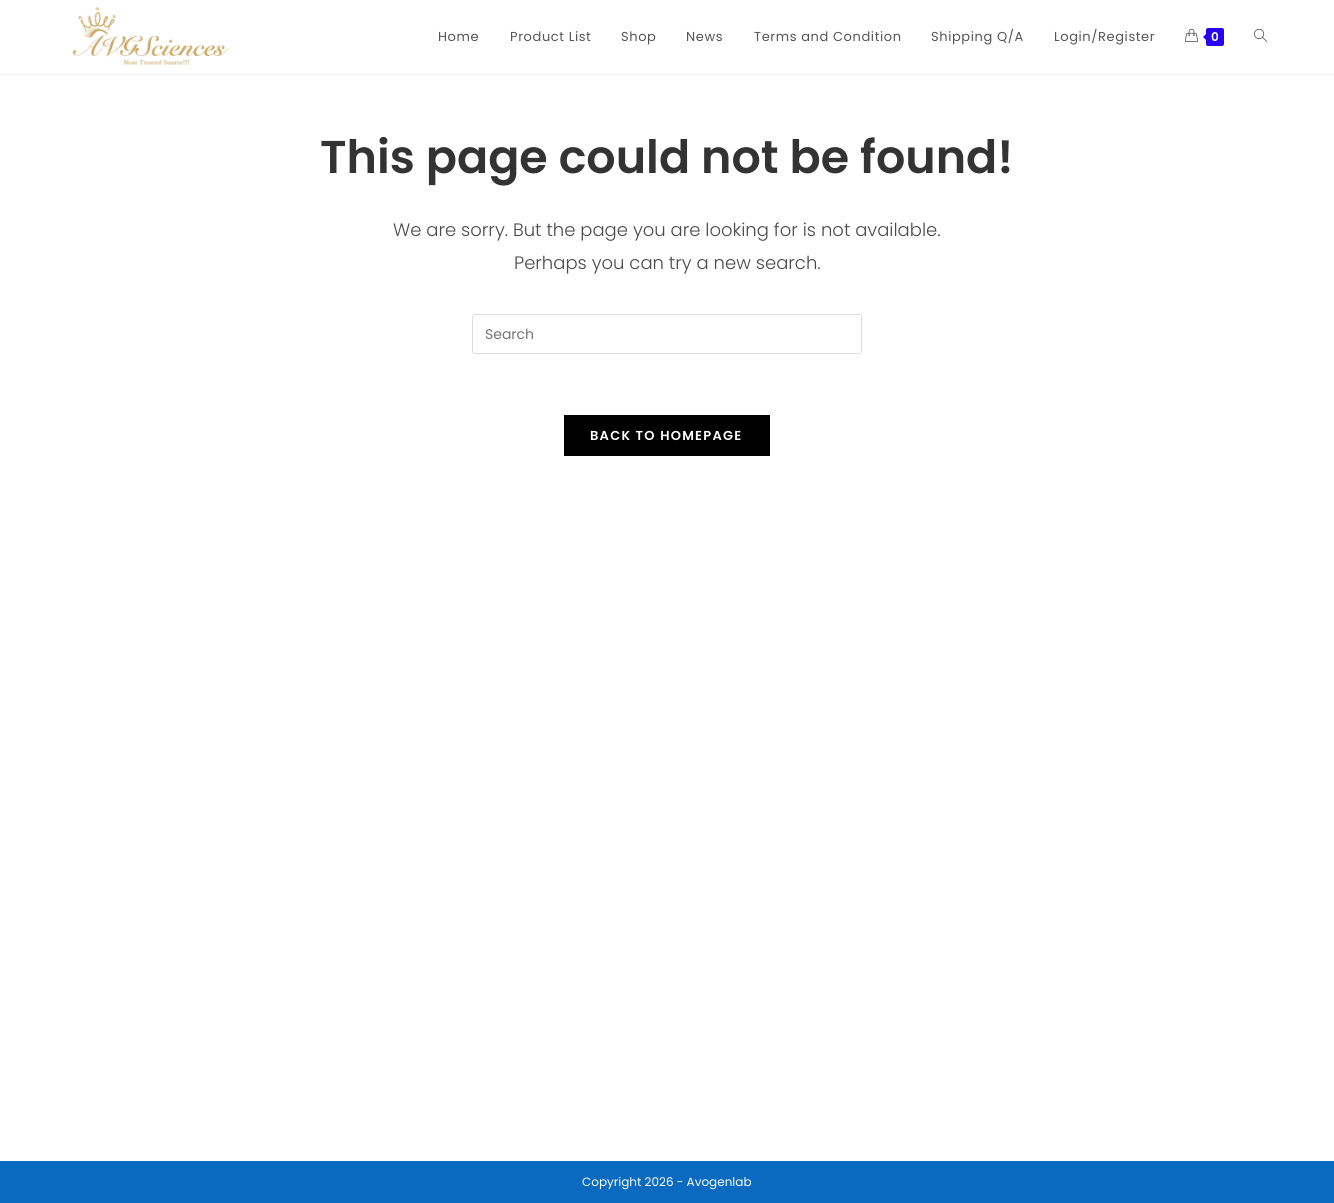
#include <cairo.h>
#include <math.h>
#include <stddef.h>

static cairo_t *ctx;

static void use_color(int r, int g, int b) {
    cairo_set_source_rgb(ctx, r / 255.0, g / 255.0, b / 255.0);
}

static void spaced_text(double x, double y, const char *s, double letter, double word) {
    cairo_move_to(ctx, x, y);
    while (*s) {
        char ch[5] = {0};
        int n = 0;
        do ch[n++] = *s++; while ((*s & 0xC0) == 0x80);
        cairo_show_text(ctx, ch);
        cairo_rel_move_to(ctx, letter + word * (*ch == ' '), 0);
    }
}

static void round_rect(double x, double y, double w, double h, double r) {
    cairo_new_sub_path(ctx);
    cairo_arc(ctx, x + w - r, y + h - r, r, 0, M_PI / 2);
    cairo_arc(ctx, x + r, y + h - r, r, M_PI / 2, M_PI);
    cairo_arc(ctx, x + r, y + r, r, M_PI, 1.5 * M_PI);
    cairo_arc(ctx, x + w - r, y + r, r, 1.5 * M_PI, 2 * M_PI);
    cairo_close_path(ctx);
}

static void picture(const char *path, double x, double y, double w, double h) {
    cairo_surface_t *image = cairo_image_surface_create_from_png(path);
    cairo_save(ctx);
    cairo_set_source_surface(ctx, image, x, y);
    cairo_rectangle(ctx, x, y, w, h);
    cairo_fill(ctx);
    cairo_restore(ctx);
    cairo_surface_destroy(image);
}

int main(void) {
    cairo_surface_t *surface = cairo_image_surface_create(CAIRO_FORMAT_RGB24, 1334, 1203);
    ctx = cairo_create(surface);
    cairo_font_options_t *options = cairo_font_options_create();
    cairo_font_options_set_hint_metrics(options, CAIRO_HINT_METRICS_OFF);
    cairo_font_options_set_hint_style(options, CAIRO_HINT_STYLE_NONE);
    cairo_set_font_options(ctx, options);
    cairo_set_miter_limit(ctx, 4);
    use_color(255, 255, 255);
    cairo_paint(ctx);
    use_color(241, 241, 241);
    cairo_rectangle(ctx, 0, 74, 1334, 1);
    cairo_fill(ctx);
    picture("img1.png", 72, 7, 157, 58);
    cairo_select_font_face(ctx, "Poppins", CAIRO_FONT_SLANT_NORMAL, CAIRO_FONT_WEIGHT_NORMAL);
    cairo_set_font_size(ctx, 13);
    use_color(85, 85, 85);
    spaced_text(438, 41, "Home", 0.6, 0);
    spaced_text(510, 41, "Product List", 0.6, 0);
    spaced_text(621, 41, "Shop", 0.6, 0);
    spaced_text(686, 41, "News", 0.6, 0);
    spaced_text(754, 41, "Terms and Condition", 0.6, 0);
    spaced_text(931, 41, "Shipping Q/A", 0.6, 0);
    spaced_text(1054, 41, "Login/Register", 0.6, 0);
    picture("img2.png", 1185, 28, 13, 14);
    use_color(40, 0, 242);
    round_rect(1206, 28, 18, 18, 2);
    cairo_fill(ctx);
    cairo_new_path(ctx);
    cairo_move_to(ctx, 1208, 32);
    cairo_line_to(ctx, 1208, 42);
    cairo_line_to(ctx, 1203, 37);
    cairo_close_path(ctx);
    cairo_fill(ctx);
    cairo_select_font_face(ctx, "Poppins SemiBold", CAIRO_FONT_SLANT_NORMAL, CAIRO_FONT_WEIGHT_NORMAL);
    cairo_set_font_size(ctx, 12);
    use_color(255, 255, 255);
    cairo_move_to(ctx, 1211, 41);
    cairo_show_text(ctx, "0");
    picture("img3.png", 1254, 28, 13, 14);
    cairo_set_font_size(ctx, 46);
    use_color(51, 51, 51);
    cairo_move_to(ctx, 320, 173);
    cairo_show_text(ctx, "This page could not be found!");
    cairo_select_font_face(ctx, "Poppins Light", CAIRO_FONT_SLANT_NORMAL, CAIRO_FONT_WEIGHT_NORMAL);
    cairo_set_font_size(ctx, 18);
    use_color(74, 74, 74);
    cairo_move_to(ctx, 393, 236);
    cairo_show_text(ctx, "We are sorry. But the page you are looking for is not available.");
    cairo_move_to(ctx, 514, 269);
    cairo_show_text(ctx, "Perhaps you can try a new search.");
    round_rect(472.5, 314.5, 389, 39, 2.5);
    use_color(221, 221, 221);
    cairo_set_line_width(ctx, 1);
    cairo_stroke(ctx);
    cairo_select_font_face(ctx, "Poppins", CAIRO_FONT_SLANT_NORMAL, CAIRO_FONT_WEIGHT_NORMAL);
    cairo_set_font_size(ctx, 14);
    use_color(117, 117, 117);
    cairo_move_to(ctx, 485, 339);
    cairo_show_text(ctx, "Search");
    use_color(0, 0, 0);
    cairo_rectangle(ctx, 564, 415, 206, 41);
    cairo_fill(ctx);
    cairo_select_font_face(ctx, "Poppins SemiBold", CAIRO_FONT_SLANT_NORMAL, CAIRO_FONT_WEIGHT_NORMAL);
    cairo_set_font_size(ctx, 13);
    use_color(255, 255, 255);
    spaced_text(590, 440, "BACK TO HOMEPAGE", 1.25, 0);
    use_color(9, 106, 191);
    cairo_rectangle(ctx, 0, 1161, 1334, 42);
    cairo_fill(ctx);
    cairo_select_font_face(ctx, "Poppins", CAIRO_FONT_SLANT_NORMAL, CAIRO_FONT_WEIGHT_NORMAL);
    cairo_set_font_size(ctx, 12);
    use_color(255, 255, 255);
    cairo_move_to(ctx, 582, 1186);
    cairo_show_text(ctx, "Copyright 2026 - Avogenlab");
    cairo_surface_write_to_png(surface, "result.png");
    cairo_font_options_destroy(options);
    cairo_destroy(ctx);
    cairo_surface_destroy(surface);
    return 0;
}
